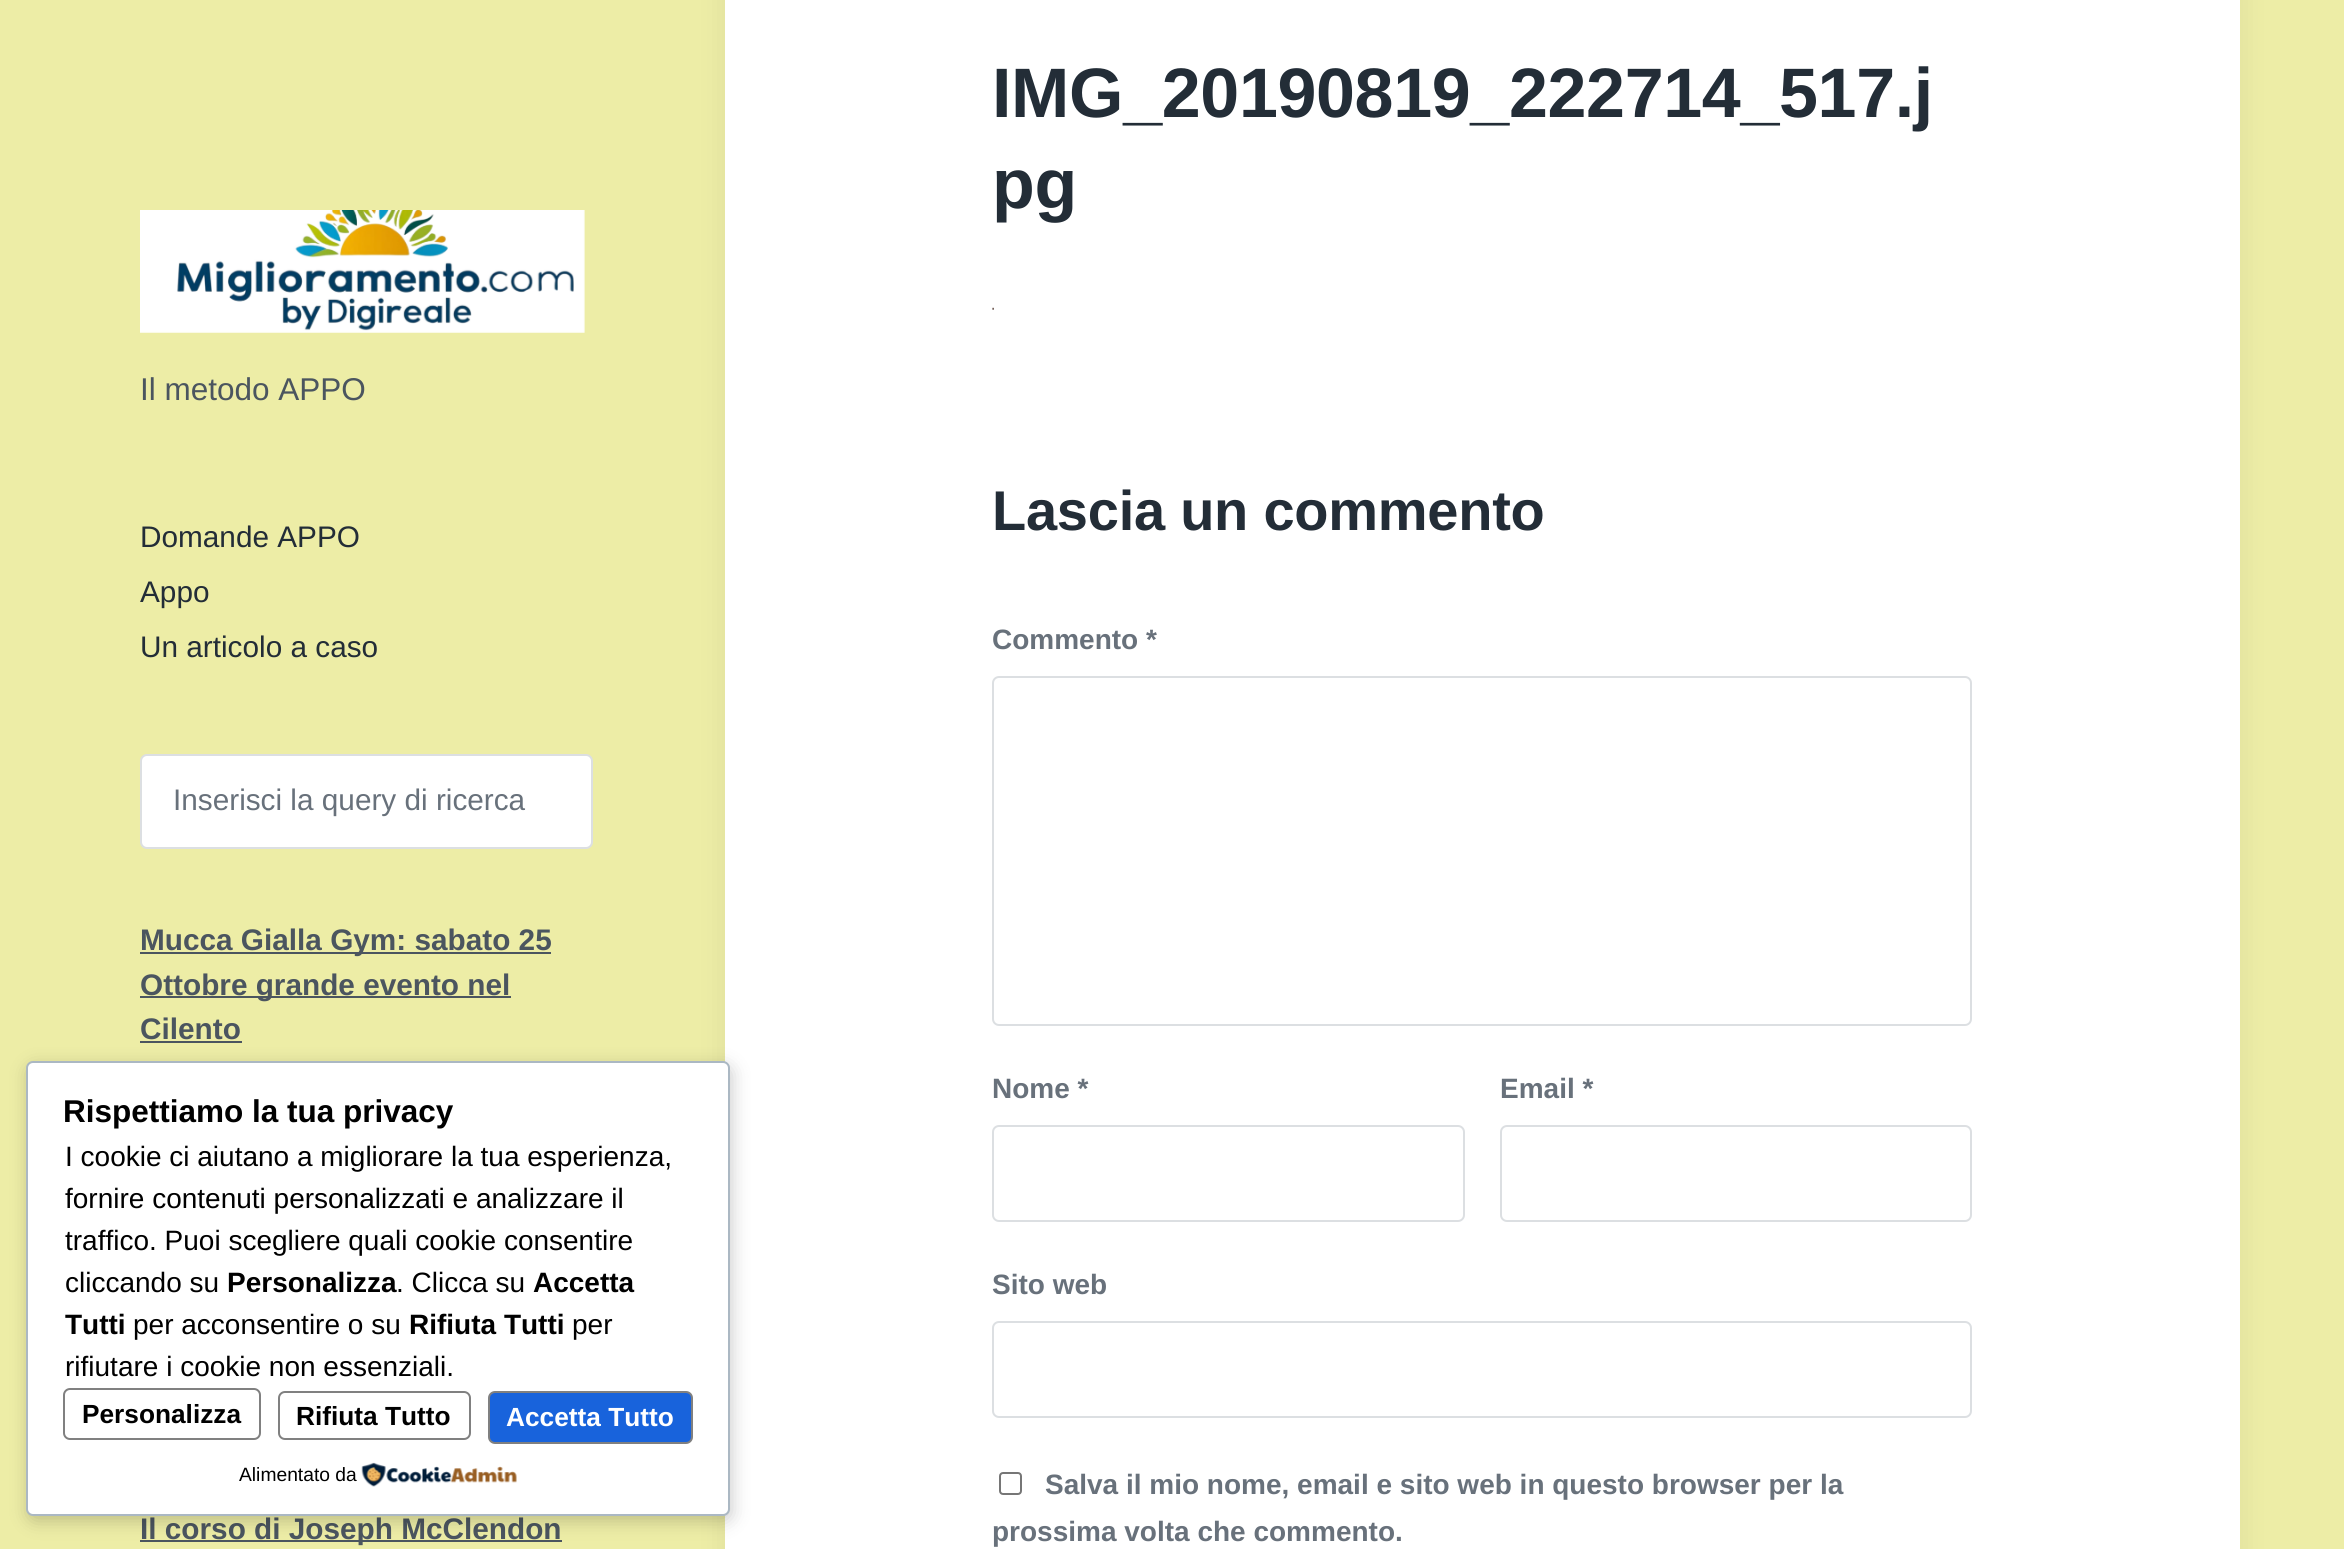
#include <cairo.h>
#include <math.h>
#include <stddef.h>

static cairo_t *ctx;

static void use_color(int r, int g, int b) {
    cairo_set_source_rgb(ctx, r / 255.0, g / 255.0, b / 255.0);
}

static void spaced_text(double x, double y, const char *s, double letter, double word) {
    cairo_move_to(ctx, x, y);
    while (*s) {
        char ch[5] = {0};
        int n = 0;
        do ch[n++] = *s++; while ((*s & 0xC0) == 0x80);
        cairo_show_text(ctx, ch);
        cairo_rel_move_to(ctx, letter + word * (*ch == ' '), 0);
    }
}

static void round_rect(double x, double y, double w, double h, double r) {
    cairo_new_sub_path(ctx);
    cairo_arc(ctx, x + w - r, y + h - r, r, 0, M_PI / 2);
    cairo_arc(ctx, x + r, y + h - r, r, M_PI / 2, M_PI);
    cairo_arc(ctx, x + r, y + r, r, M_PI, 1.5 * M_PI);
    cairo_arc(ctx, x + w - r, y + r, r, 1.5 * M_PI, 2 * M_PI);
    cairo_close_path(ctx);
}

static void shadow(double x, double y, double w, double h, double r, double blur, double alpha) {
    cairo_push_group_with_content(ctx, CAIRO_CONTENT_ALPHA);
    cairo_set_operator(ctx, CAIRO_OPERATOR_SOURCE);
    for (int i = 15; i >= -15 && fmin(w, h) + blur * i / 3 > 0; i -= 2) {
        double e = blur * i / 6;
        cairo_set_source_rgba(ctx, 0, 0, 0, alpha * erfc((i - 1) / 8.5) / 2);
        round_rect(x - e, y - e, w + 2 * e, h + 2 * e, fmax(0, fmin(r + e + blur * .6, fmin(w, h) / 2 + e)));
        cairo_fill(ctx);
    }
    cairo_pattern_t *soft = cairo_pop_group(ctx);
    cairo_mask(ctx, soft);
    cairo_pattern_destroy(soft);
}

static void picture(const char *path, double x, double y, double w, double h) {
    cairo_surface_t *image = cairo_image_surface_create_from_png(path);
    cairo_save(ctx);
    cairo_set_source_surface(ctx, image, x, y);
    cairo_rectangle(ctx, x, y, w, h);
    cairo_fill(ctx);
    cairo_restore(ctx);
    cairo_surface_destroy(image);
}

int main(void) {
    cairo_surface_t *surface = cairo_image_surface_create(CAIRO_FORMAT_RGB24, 2344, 1549);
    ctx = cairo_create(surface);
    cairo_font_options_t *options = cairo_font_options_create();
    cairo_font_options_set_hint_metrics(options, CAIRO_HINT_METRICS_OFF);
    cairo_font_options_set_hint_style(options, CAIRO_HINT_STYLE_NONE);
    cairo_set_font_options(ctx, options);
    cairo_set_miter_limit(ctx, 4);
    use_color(237, 237, 166);
    cairo_paint(ctx);
    picture("img1.png", 140, 210, 445, 123);
    cairo_select_font_face(ctx, "Liberation Sans", CAIRO_FONT_SLANT_NORMAL, CAIRO_FONT_WEIGHT_NORMAL);
    cairo_set_font_size(ctx, 31.5);
    use_color(75, 85, 95);
    cairo_move_to(ctx, 140, 400);
    cairo_show_text(ctx, "Il metodo APPO");
    cairo_set_font_size(ctx, 29.75);
    use_color(35, 45, 55);
    cairo_move_to(ctx, 140, 547);
    cairo_show_text(ctx, "Domande APPO");
    cairo_move_to(ctx, 140, 602);
    cairo_show_text(ctx, "Appo");
    cairo_move_to(ctx, 140, 657);
    cairo_show_text(ctx, "Un articolo a caso");
    use_color(255, 255, 255);
    round_rect(141, 755, 451, 93, 6);
    cairo_fill_preserve(ctx);
    use_color(220, 223, 226);
    cairo_stroke(ctx);
    use_color(104, 113, 123);
    cairo_move_to(ctx, 173, 810);
    cairo_show_text(ctx, "Inserisci la query di ricerca");
    use_color(75, 85, 95);
    cairo_rectangle(ctx, 140, 952, 411, 2);
    cairo_fill(ctx);
    cairo_select_font_face(ctx, "Liberation Sans", CAIRO_FONT_SLANT_NORMAL, CAIRO_FONT_WEIGHT_BOLD);
    cairo_move_to(ctx, 140, 950);
    cairo_show_text(ctx, "Mucca Gialla Gym: sabato 25");
    cairo_rectangle(ctx, 140, 996, 371, 2);
    cairo_fill(ctx);
    cairo_move_to(ctx, 140, 995);
    cairo_show_text(ctx, "Ottobre grande evento nel");
    cairo_move_to(ctx, 140, 1039);
    cairo_show_text(ctx, "Cilento");
    cairo_rectangle(ctx, 140, 1041, 102, 2);
    cairo_fill(ctx);
    cairo_rectangle(ctx, 140, 1540, 422, 2);
    cairo_fill(ctx);
    cairo_move_to(ctx, 140, 1539);
    cairo_show_text(ctx, "Il corso di Joseph McClendon");
    use_color(5, 10, 15);
    shadow(725, -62, 1515, 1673, 14, 16, 0.07);
    use_color(255, 255, 255);
    cairo_rectangle(ctx, 725, 0, 1515, 1549);
    cairo_fill(ctx);
    cairo_set_font_size(ctx, 70);
    use_color(35, 45, 55);
    spaced_text(992, 117, "IMG_20190819_222714_517.j", -0.35, 0);
    spaced_text(992, 208, "pg", -0.35, 0);
    picture("img2.png", 992, 307, 2, 3);
    cairo_set_font_size(ctx, 56);
    spaced_text(992, 530, "Lascia un commento", -0.25, 0);
    cairo_set_font_size(ctx, 28);
    use_color(104, 113, 123);
    cairo_move_to(ctx, 992, 649);
    cairo_show_text(ctx, "Commento *");
    round_rect(993, 677, 978, 348, 6);
    use_color(220, 223, 226);
    cairo_stroke(ctx);
    use_color(104, 113, 123);
    cairo_move_to(ctx, 992, 1098);
    cairo_show_text(ctx, "Nome *");
    round_rect(993, 1126, 471, 95, 6);
    use_color(220, 223, 226);
    cairo_stroke(ctx);
    use_color(104, 113, 123);
    cairo_move_to(ctx, 1500, 1098);
    cairo_show_text(ctx, "Email *");
    round_rect(1501, 1126, 470, 95, 6);
    use_color(220, 223, 226);
    cairo_stroke(ctx);
    use_color(104, 113, 123);
    cairo_move_to(ctx, 992, 1294);
    cairo_show_text(ctx, "Sito web");
    round_rect(993, 1322, 978, 95, 6);
    use_color(220, 223, 226);
    cairo_stroke(ctx);
    round_rect(1000, 1473, 21, 21, 3);
    use_color(118, 118, 118);
    cairo_stroke(ctx);
    use_color(104, 113, 123);
    cairo_move_to(ctx, 1045, 1494);
    cairo_show_text(ctx, "Salva il mio nome, email e sito web in questo browser per la");
    cairo_move_to(ctx, 992, 1541);
    cairo_show_text(ctx, "prossima volta che commento.");
    use_color(0, 0, 0);
    shadow(28, 1066, 704, 455, 7, 9, 0.2);
    use_color(255, 255, 255);
    round_rect(27, 1062, 702, 453, 6);
    cairo_fill_preserve(ctx);
    use_color(171, 184, 195);
    cairo_stroke(ctx);
    cairo_set_font_size(ctx, 31.5);
    use_color(0, 0, 0);
    cairo_move_to(ctx, 63, 1122);
    cairo_show_text(ctx, "Rispettiamo la tua privacy");
    cairo_select_font_face(ctx, "Liberation Sans", CAIRO_FONT_SLANT_NORMAL, CAIRO_FONT_WEIGHT_NORMAL);
    cairo_set_font_size(ctx, 28);
    cairo_move_to(ctx, 65, 1166);
    cairo_show_text(ctx, "I cookie ci aiutano a migliorare la tua esperienza,");
    cairo_move_to(ctx, 65, 1208);
    cairo_show_text(ctx, "fornire contenuti personalizzati e analizzare il");
    cairo_move_to(ctx, 65, 1250);
    cairo_show_text(ctx, "traffico. Puoi scegliere quali cookie consentire");
    cairo_move_to(ctx, 65, 1292);
    cairo_show_text(ctx, "cliccando su");
    cairo_select_font_face(ctx, "Liberation Sans", CAIRO_FONT_SLANT_NORMAL, CAIRO_FONT_WEIGHT_BOLD);
    cairo_move_to(ctx, 227, 1292);
    cairo_show_text(ctx, "Personalizza");
    cairo_select_font_face(ctx, "Liberation Sans", CAIRO_FONT_SLANT_NORMAL, CAIRO_FONT_WEIGHT_NORMAL);
    cairo_move_to(ctx, 396, 1292);
    cairo_show_text(ctx, ". Clicca su");
    cairo_select_font_face(ctx, "Liberation Sans", CAIRO_FONT_SLANT_NORMAL, CAIRO_FONT_WEIGHT_BOLD);
    cairo_move_to(ctx, 533, 1292);
    cairo_show_text(ctx, "Accetta");
    cairo_move_to(ctx, 65, 1334);
    cairo_show_text(ctx, "Tutti");
    cairo_select_font_face(ctx, "Liberation Sans", CAIRO_FONT_SLANT_NORMAL, CAIRO_FONT_WEIGHT_NORMAL);
    cairo_move_to(ctx, 133, 1334);
    cairo_show_text(ctx, "per acconsentire o su");
    cairo_select_font_face(ctx, "Liberation Sans", CAIRO_FONT_SLANT_NORMAL, CAIRO_FONT_WEIGHT_BOLD);
    cairo_move_to(ctx, 409, 1334);
    cairo_show_text(ctx, "Rifiuta Tutti");
    cairo_select_font_face(ctx, "Liberation Sans", CAIRO_FONT_SLANT_NORMAL, CAIRO_FONT_WEIGHT_NORMAL);
    cairo_move_to(ctx, 572, 1334);
    cairo_show_text(ctx, "per");
    cairo_move_to(ctx, 65, 1376);
    cairo_show_text(ctx, "rifiutare i cookie non essenziali.");
    round_rect(64, 1389, 196, 50, 6);
    use_color(128, 128, 128);
    cairo_stroke(ctx);
    cairo_select_font_face(ctx, "Liberation Sans", CAIRO_FONT_SLANT_NORMAL, CAIRO_FONT_WEIGHT_BOLD);
    cairo_set_font_size(ctx, 26.25);
    use_color(0, 0, 0);
    cairo_move_to(ctx, 82, 1423);
    cairo_show_text(ctx, "Personalizza");
    round_rect(279, 1392, 191, 47, 6);
    use_color(128, 128, 128);
    cairo_stroke(ctx);
    use_color(0, 0, 0);
    cairo_move_to(ctx, 296, 1425);
    cairo_show_text(ctx, "Rifiuta Tutto");
    use_color(24, 99, 220);
    round_rect(489, 1392, 203, 51, 6);
    cairo_fill_preserve(ctx);
    use_color(128, 128, 128);
    cairo_stroke(ctx);
    use_color(255, 255, 255);
    cairo_move_to(ctx, 506, 1426);
    cairo_show_text(ctx, "Accetta Tutto");
    cairo_select_font_face(ctx, "Liberation Sans", CAIRO_FONT_SLANT_NORMAL, CAIRO_FONT_WEIGHT_NORMAL);
    cairo_set_font_size(ctx, 19.25);
    use_color(0, 0, 0);
    cairo_move_to(ctx, 239, 1481);
    cairo_show_text(ctx, "Alimentato da");
    picture("img3.png", 361, 1462, 156, 25);
    cairo_surface_write_to_png(surface, "result.png");
    cairo_font_options_destroy(options);
    cairo_destroy(ctx);
    cairo_surface_destroy(surface);
    return 0;
}
